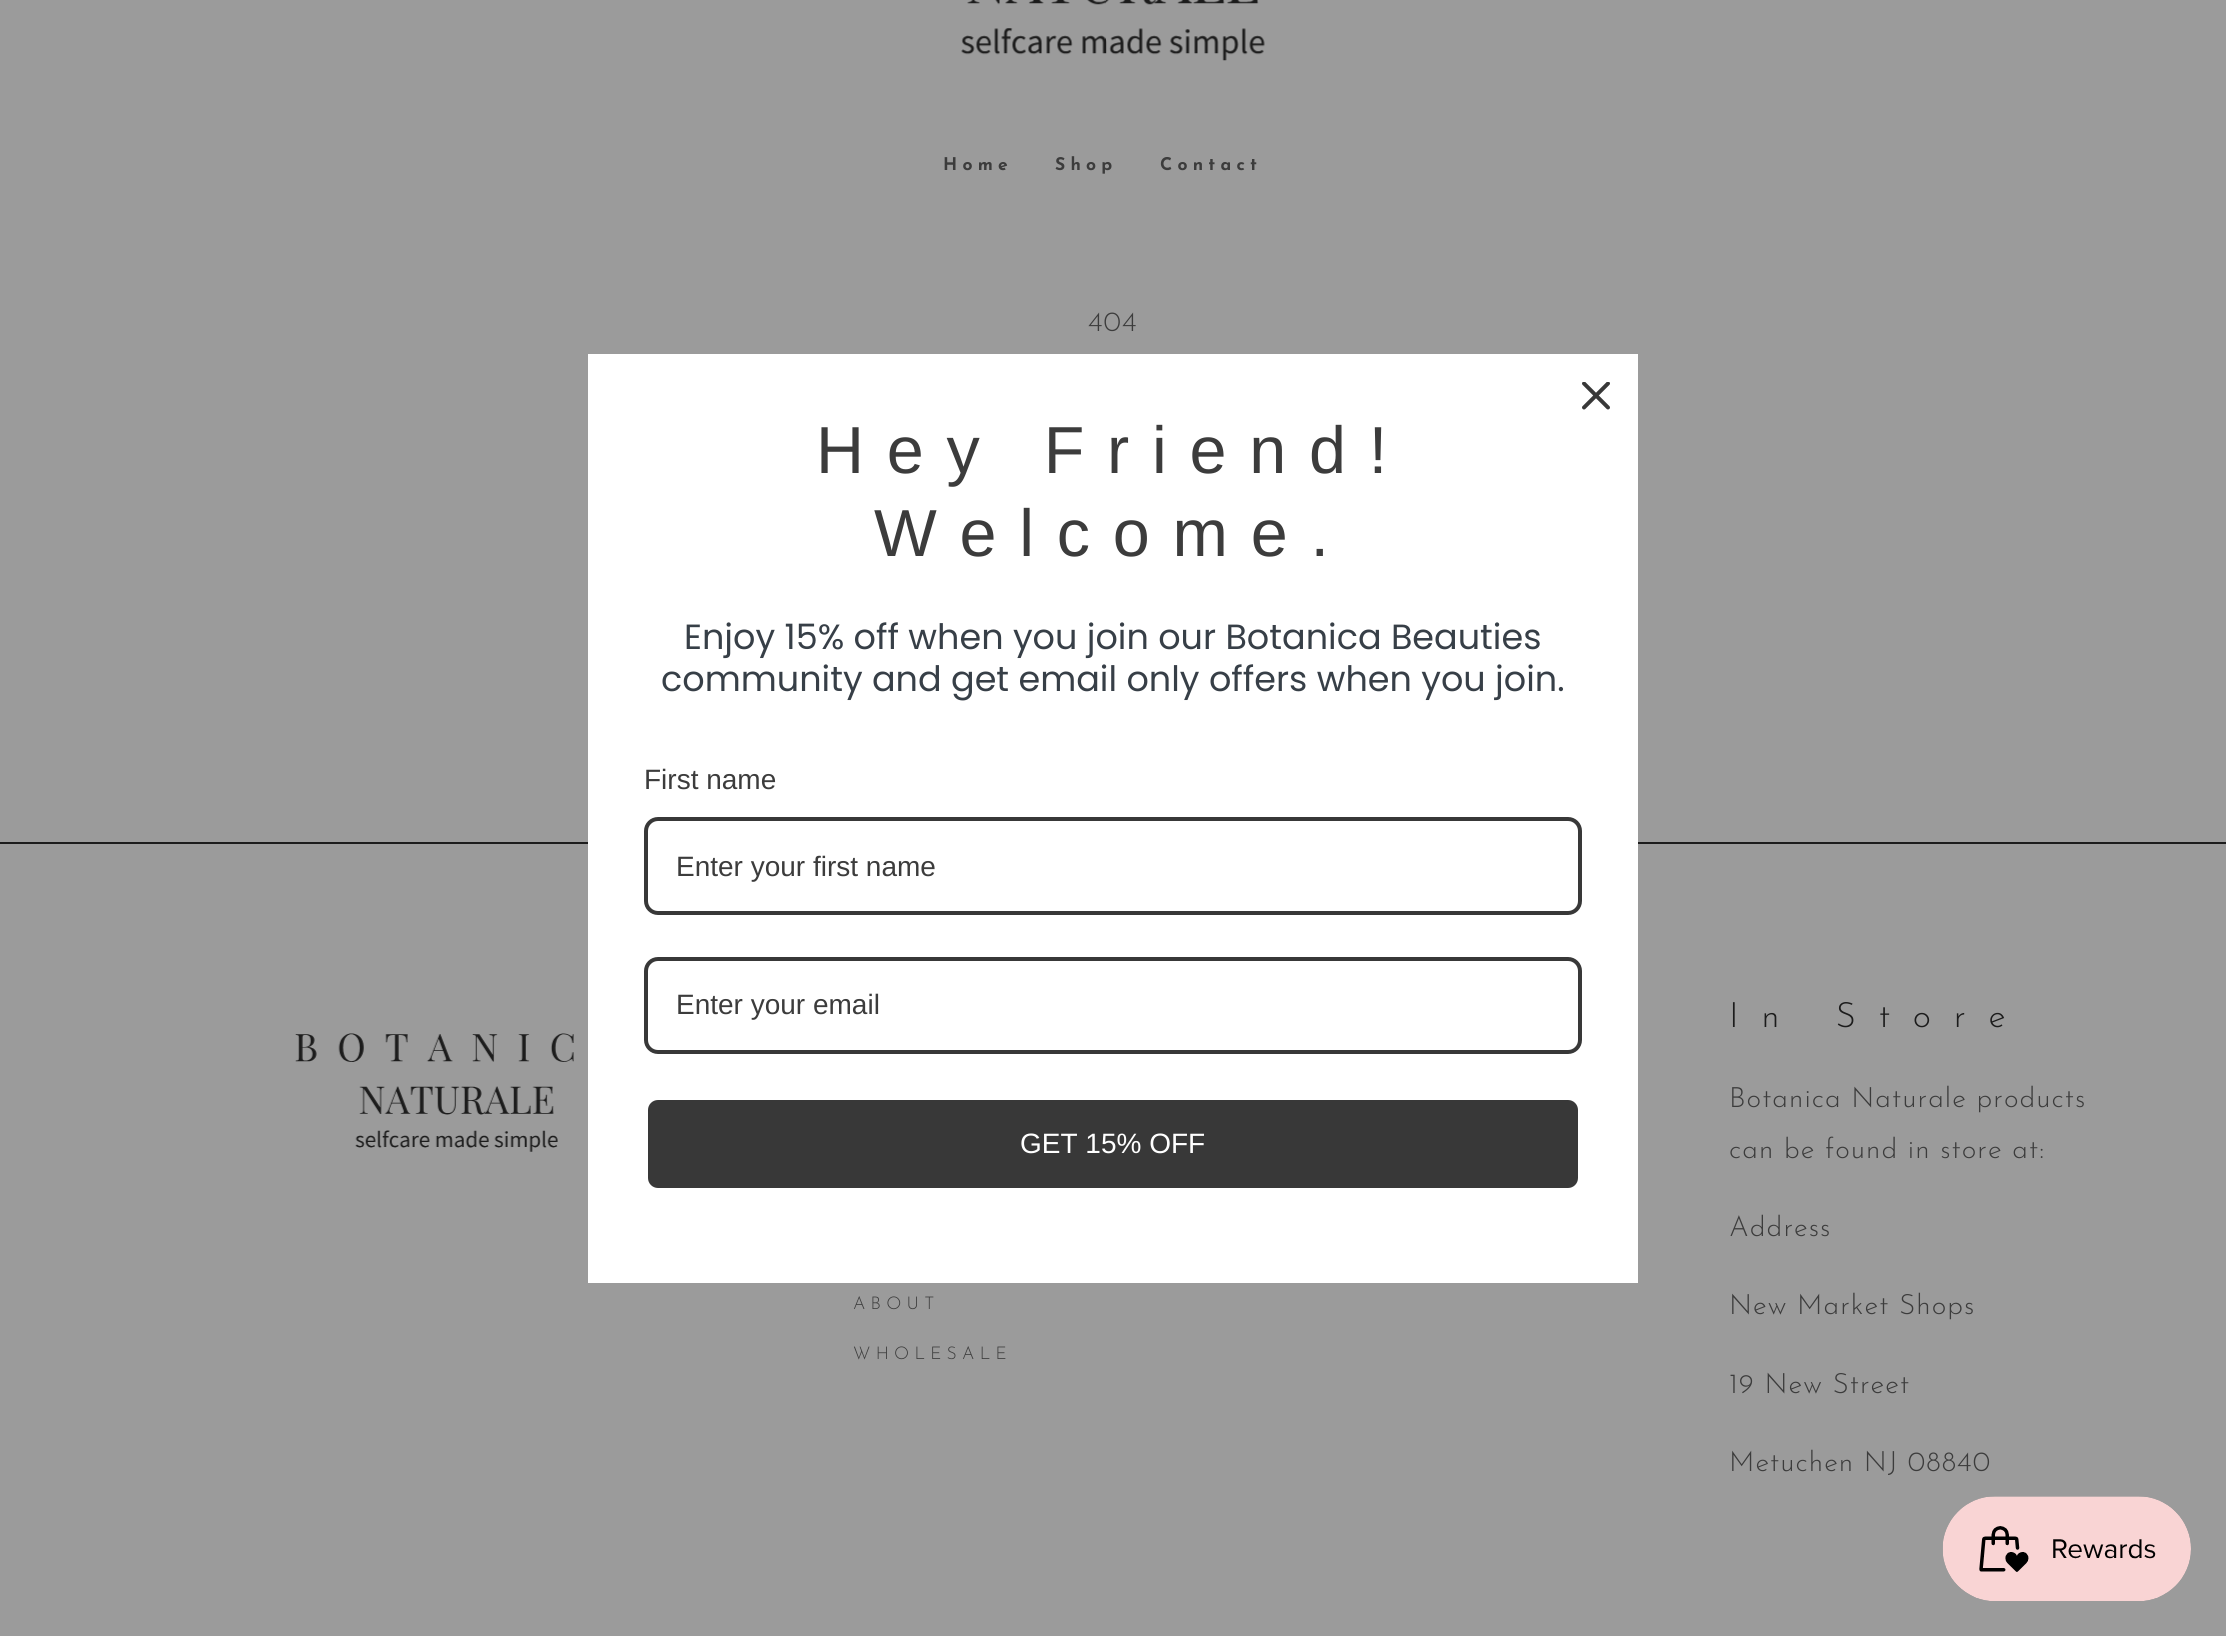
#include <cairo.h>
#include <math.h>
#include <stddef.h>

static cairo_t *ctx;

static void use_color(int r, int g, int b) {
    cairo_set_source_rgb(ctx, r / 255.0, g / 255.0, b / 255.0);
}

static void spaced_text(double x, double y, const char *s, double letter, double word) {
    cairo_move_to(ctx, x, y);
    while (*s) {
        char ch[5] = {0};
        int n = 0;
        do ch[n++] = *s++; while ((*s & 0xC0) == 0x80);
        cairo_show_text(ctx, ch);
        cairo_rel_move_to(ctx, letter + word * (*ch == ' '), 0);
    }
}

static void round_rect(double x, double y, double w, double h, double r) {
    cairo_new_sub_path(ctx);
    cairo_arc(ctx, x + w - r, y + h - r, r, 0, M_PI / 2);
    cairo_arc(ctx, x + r, y + h - r, r, M_PI / 2, M_PI);
    cairo_arc(ctx, x + r, y + r, r, M_PI, 1.5 * M_PI);
    cairo_arc(ctx, x + w - r, y + r, r, 1.5 * M_PI, 2 * M_PI);
    cairo_close_path(ctx);
}

static void picture(const char *path, double x, double y, double w, double h) {
    cairo_surface_t *image = cairo_image_surface_create_from_png(path);
    cairo_save(ctx);
    cairo_set_source_surface(ctx, image, x, y);
    cairo_rectangle(ctx, x, y, w, h);
    cairo_fill(ctx);
    cairo_restore(ctx);
    cairo_surface_destroy(image);
}

int main(void) {
    cairo_surface_t *surface = cairo_image_surface_create(CAIRO_FORMAT_RGB24, 2226, 1636);
    ctx = cairo_create(surface);
    cairo_font_options_t *options = cairo_font_options_create();
    cairo_font_options_set_hint_metrics(options, CAIRO_HINT_METRICS_OFF);
    cairo_font_options_set_hint_style(options, CAIRO_HINT_STYLE_NONE);
    cairo_set_font_options(ctx, options);
    cairo_set_miter_limit(ctx, 4);
    use_color(155, 155, 155);
    cairo_paint(ctx);
    picture("img1.png", 961, 0, 304, 61);
    cairo_select_font_face(ctx, "Josefin Sans", CAIRO_FONT_SLANT_NORMAL, CAIRO_FONT_WEIGHT_BOLD);
    cairo_set_font_size(ctx, 17.5);
    use_color(60, 60, 60);
    spaced_text(943, 170, "Home", 5.25, 0);
    spaced_text(1055, 170, "Shop", 5.25, 0);
    spaced_text(1160, 170, "Contact", 5.25, 0);
    cairo_select_font_face(ctx, "Josefin Sans Light", CAIRO_FONT_SLANT_NORMAL, CAIRO_FONT_WEIGHT_NORMAL);
    cairo_set_font_size(ctx, 28);
    spaced_text(1088, 331, "404", 1.05, 0);
    use_color(28, 28, 28);
    cairo_rectangle(ctx, 0, 842, 2226, 2);
    cairo_fill(ctx);
    use_color(255, 255, 255);
    cairo_rectangle(ctx, 588, 354, 1050, 929);
    cairo_fill(ctx);
    picture("img2.png", 1582, 382, 28, 28);
    cairo_select_font_face(ctx, "Liberation Sans", CAIRO_FONT_SLANT_NORMAL, CAIRO_FONT_WEIGHT_NORMAL);
    cairo_set_font_size(ctx, 66.5);
    use_color(60, 60, 60);
    spaced_text(816, 473, "Hey Friend!", 22.75, 0);
    spaced_text(874, 556, "Welcome.", 22.75, 0);
    cairo_select_font_face(ctx, "Poppins", CAIRO_FONT_SLANT_NORMAL, CAIRO_FONT_WEIGHT_NORMAL);
    cairo_set_font_size(ctx, 35);
    use_color(55, 63, 71);
    cairo_move_to(ctx, 684, 649);
    cairo_show_text(ctx, "Enjoy 15% off when you join our Botanica Beauties");
    cairo_move_to(ctx, 661, 691);
    cairo_show_text(ctx, "community and get email only offers when you join.");
    cairo_select_font_face(ctx, "Liberation Sans", CAIRO_FONT_SLANT_NORMAL, CAIRO_FONT_WEIGHT_NORMAL);
    cairo_set_font_size(ctx, 28);
    use_color(60, 60, 60);
    cairo_move_to(ctx, 644, 789);
    cairo_show_text(ctx, "First name");
    round_rect(646, 819, 934, 94, 12);
    use_color(56, 56, 56);
    cairo_set_line_width(ctx, 4);
    cairo_stroke(ctx);
    use_color(60, 60, 60);
    cairo_move_to(ctx, 676, 876);
    cairo_show_text(ctx, "Enter your first name");
    round_rect(646, 959, 934, 93, 12);
    use_color(56, 56, 56);
    cairo_stroke(ctx);
    use_color(60, 60, 60);
    cairo_move_to(ctx, 676, 1014);
    cairo_show_text(ctx, "Enter your email");
    use_color(56, 56, 56);
    round_rect(646, 1098, 934, 92, 12);
    cairo_fill_preserve(ctx);
    use_color(255, 255, 255);
    cairo_stroke(ctx);
    cairo_move_to(ctx, 1020, 1153);
    cairo_show_text(ctx, "GET 15% OFF");
    picture("img3.png", 295, 1033, 279, 119);
    cairo_select_font_face(ctx, "Josefin Sans Light", CAIRO_FONT_SLANT_NORMAL, CAIRO_FONT_WEIGHT_NORMAL);
    cairo_set_font_size(ctx, 35);
    use_color(28, 28, 28);
    spaced_text(1729, 1027, "In Store", 22.75, 0);
    cairo_set_font_size(ctx, 28);
    use_color(60, 60, 60);
    spaced_text(1729, 1107, "Botanica Naturale products", 1.05, 0);
    spaced_text(1729, 1158, "can be found in store at:", 1.05, 0);
    spaced_text(1729, 1236, "Address", 1.05, 0);
    spaced_text(1729, 1314, "New Market Shops", 1.05, 0);
    spaced_text(1729, 1393, "19 New Street", 1.05, 0);
    spaced_text(1729, 1471, "Metuchen NJ 08840", 1.05, 0);
    cairo_set_font_size(ctx, 17.5);
    spaced_text(853, 1309, "ABOUT", 5.25, 0);
    spaced_text(853, 1359, "WHOLESALE", 5.25, 0);
    picture("img4.png", 1942, 1496, 249, 105);
    cairo_surface_write_to_png(surface, "result.png");
    cairo_font_options_destroy(options);
    cairo_destroy(ctx);
    cairo_surface_destroy(surface);
    return 0;
}
